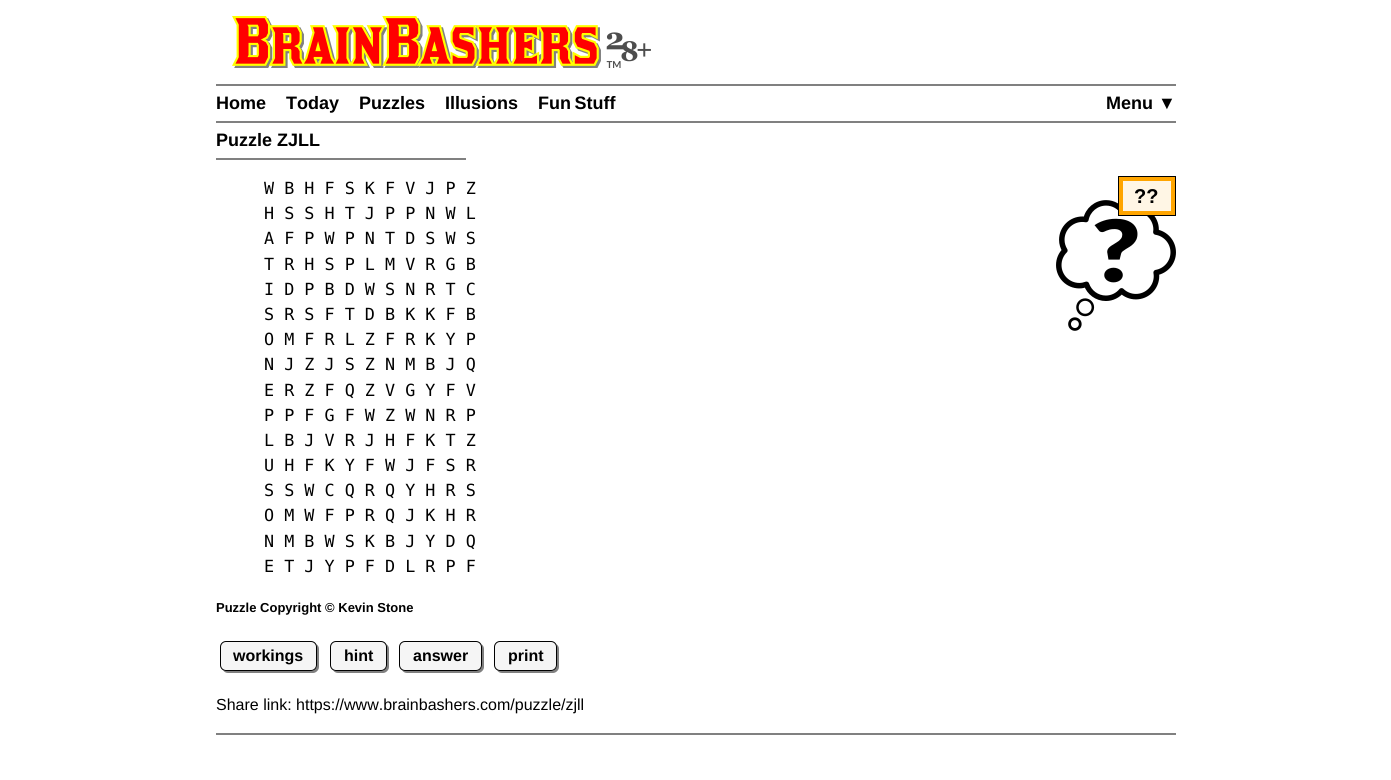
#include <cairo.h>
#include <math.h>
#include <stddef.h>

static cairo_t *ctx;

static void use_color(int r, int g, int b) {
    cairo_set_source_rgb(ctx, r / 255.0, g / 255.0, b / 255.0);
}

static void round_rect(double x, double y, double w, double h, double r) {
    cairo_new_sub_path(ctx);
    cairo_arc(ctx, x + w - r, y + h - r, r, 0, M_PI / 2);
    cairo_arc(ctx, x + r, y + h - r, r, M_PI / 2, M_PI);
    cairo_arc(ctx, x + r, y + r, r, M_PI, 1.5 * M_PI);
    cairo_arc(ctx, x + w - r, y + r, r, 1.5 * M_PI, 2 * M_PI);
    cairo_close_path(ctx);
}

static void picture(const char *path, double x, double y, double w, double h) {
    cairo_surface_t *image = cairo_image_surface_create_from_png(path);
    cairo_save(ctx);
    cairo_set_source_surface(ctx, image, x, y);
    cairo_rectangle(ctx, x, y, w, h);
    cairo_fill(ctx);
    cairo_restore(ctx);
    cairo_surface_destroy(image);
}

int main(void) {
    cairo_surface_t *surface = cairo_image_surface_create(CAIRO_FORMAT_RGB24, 1391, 780);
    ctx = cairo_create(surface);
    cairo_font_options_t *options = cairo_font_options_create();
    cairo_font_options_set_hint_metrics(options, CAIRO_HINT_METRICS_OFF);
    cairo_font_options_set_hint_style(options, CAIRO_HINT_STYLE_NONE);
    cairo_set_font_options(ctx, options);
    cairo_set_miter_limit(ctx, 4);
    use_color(255, 255, 255);
    cairo_paint(ctx);
    picture("img1.png", 232, 16, 419, 52);
    use_color(128, 128, 128);
    cairo_rectangle(ctx, 216, 84, 960, 2);
    cairo_fill(ctx);
    cairo_select_font_face(ctx, "Liberation Sans", CAIRO_FONT_SLANT_NORMAL, CAIRO_FONT_WEIGHT_BOLD);
    cairo_set_font_size(ctx, 18);
    use_color(0, 0, 0);
    cairo_move_to(ctx, 216, 109);
    cairo_show_text(ctx, "Home");
    cairo_move_to(ctx, 286, 109);
    cairo_show_text(ctx, "Today");
    cairo_move_to(ctx, 359, 109);
    cairo_show_text(ctx, "Puzzles");
    cairo_move_to(ctx, 445, 109);
    cairo_show_text(ctx, "Illusions");
    cairo_move_to(ctx, 538, 109);
    cairo_show_text(ctx, "Fun Stuff");
    cairo_move_to(ctx, 1106, 109);
    cairo_show_text(ctx, "Menu ▼");
    use_color(128, 128, 128);
    cairo_rectangle(ctx, 216, 121, 960, 2);
    cairo_fill(ctx);
    use_color(0, 0, 0);
    cairo_move_to(ctx, 216, 146);
    cairo_show_text(ctx, "Puzzle ZJLL");
    use_color(128, 128, 128);
    cairo_rectangle(ctx, 216, 158, 250, 2);
    cairo_fill(ctx);
    cairo_select_font_face(ctx, "DejaVu Sans Mono", CAIRO_FONT_SLANT_NORMAL, CAIRO_FONT_WEIGHT_NORMAL);
    cairo_set_font_size(ctx, 16.75);
    use_color(0, 0, 0);
    cairo_move_to(ctx, 264, 194);
    cairo_show_text(ctx, "W B H F S K F V J P Z");
    cairo_move_to(ctx, 264, 219);
    cairo_show_text(ctx, "H S S H T J P P N W L");
    cairo_move_to(ctx, 264, 244);
    cairo_show_text(ctx, "A F P W P N T D S W S");
    cairo_move_to(ctx, 264, 270);
    cairo_show_text(ctx, "T R H S P L M V R G B");
    cairo_move_to(ctx, 264, 295);
    cairo_show_text(ctx, "I D P B D W S N R T C");
    cairo_move_to(ctx, 264, 320);
    cairo_show_text(ctx, "S R S F T D B K K F B");
    cairo_move_to(ctx, 264, 345);
    cairo_show_text(ctx, "O M F R L Z F R K Y P");
    cairo_move_to(ctx, 264, 370);
    cairo_show_text(ctx, "N J Z J S Z N M B J Q");
    cairo_move_to(ctx, 264, 396);
    cairo_show_text(ctx, "E R Z F Q Z V G Y F V");
    cairo_move_to(ctx, 264, 421);
    cairo_show_text(ctx, "P P F G F W Z W N R P");
    cairo_move_to(ctx, 264, 446);
    cairo_show_text(ctx, "L B J V R J H F K T Z");
    cairo_move_to(ctx, 264, 471);
    cairo_show_text(ctx, "U H F K Y F W J F S R");
    cairo_move_to(ctx, 264, 496);
    cairo_show_text(ctx, "S S W C Q R Q Y H R S");
    cairo_move_to(ctx, 264, 521);
    cairo_show_text(ctx, "O M W F P R Q J K H R");
    cairo_move_to(ctx, 264, 547);
    cairo_show_text(ctx, "N M B W S K B J Y D Q");
    cairo_move_to(ctx, 264, 572);
    cairo_show_text(ctx, "E T J Y P F D L R P F");
    picture("img2.png", 1056, 200, 120, 131);
    cairo_rectangle(ctx, 1118.5, 176.5, 57, 39);
    cairo_set_line_width(ctx, 1);
    cairo_stroke(ctx);
    use_color(255, 246, 229);
    cairo_rectangle(ctx, 1121, 179, 52, 34);
    cairo_fill_preserve(ctx);
    use_color(255, 165, 0);
    cairo_set_line_width(ctx, 4);
    cairo_stroke(ctx);
    cairo_select_font_face(ctx, "Liberation Sans", CAIRO_FONT_SLANT_NORMAL, CAIRO_FONT_WEIGHT_BOLD);
    cairo_set_font_size(ctx, 20);
    use_color(0, 0, 0);
    cairo_move_to(ctx, 1134, 203);
    cairo_show_text(ctx, "?\077");
    cairo_set_font_size(ctx, 13);
    cairo_move_to(ctx, 216, 612);
    cairo_show_text(ctx, "Puzzle Copyright © Kevin Stone");
    use_color(128, 128, 128);
    cairo_new_path(ctx);
    cairo_move_to(ctx, 223, 670);
    cairo_curve_to(ctx, 224, 672, 226, 673, 228, 673);
    cairo_line_to(ctx, 313, 673);
    cairo_curve_to(ctx, 316, 673, 319, 670, 319, 667);
    cairo_line_to(ctx, 319, 649);
    cairo_curve_to(ctx, 319, 647, 318, 645, 316, 644);
    cairo_curve_to(ctx, 317, 645, 317, 646, 317, 647);
    cairo_line_to(ctx, 317, 665);
    cairo_curve_to(ctx, 317, 668, 314, 671, 311, 671);
    cairo_line_to(ctx, 226, 671);
    cairo_curve_to(ctx, 225, 671, 224, 671, 223, 670);
    cairo_close_path(ctx);
    cairo_fill(ctx);
    use_color(245, 245, 245);
    round_rect(220.5, 641.5, 96, 29, 5.5);
    cairo_fill_preserve(ctx);
    use_color(0, 0, 0);
    cairo_set_line_width(ctx, 1);
    cairo_stroke(ctx);
    cairo_set_font_size(ctx, 16);
    cairo_move_to(ctx, 233, 661);
    cairo_show_text(ctx, "workings");
    use_color(128, 128, 128);
    cairo_new_path(ctx);
    cairo_move_to(ctx, 333, 670);
    cairo_curve_to(ctx, 334, 672, 336, 673, 338, 673);
    cairo_line_to(ctx, 383, 673);
    cairo_curve_to(ctx, 386, 673, 389, 670, 389, 667);
    cairo_line_to(ctx, 389, 649);
    cairo_curve_to(ctx, 389, 647, 388, 645, 386, 644);
    cairo_curve_to(ctx, 387, 645, 387, 646, 387, 647);
    cairo_line_to(ctx, 387, 665);
    cairo_curve_to(ctx, 387, 668, 384, 671, 381, 671);
    cairo_line_to(ctx, 336, 671);
    cairo_curve_to(ctx, 335, 671, 334, 671, 333, 670);
    cairo_close_path(ctx);
    cairo_fill(ctx);
    use_color(245, 245, 245);
    round_rect(330.5, 641.5, 56, 29, 5.5);
    cairo_fill_preserve(ctx);
    use_color(0, 0, 0);
    cairo_stroke(ctx);
    cairo_move_to(ctx, 344, 661);
    cairo_show_text(ctx, "hint");
    use_color(128, 128, 128);
    cairo_new_path(ctx);
    cairo_move_to(ctx, 402, 670);
    cairo_curve_to(ctx, 403, 672, 405, 673, 407, 673);
    cairo_line_to(ctx, 478, 673);
    cairo_curve_to(ctx, 481, 673, 484, 670, 484, 667);
    cairo_line_to(ctx, 484, 649);
    cairo_curve_to(ctx, 484, 647, 483, 645, 481, 644);
    cairo_curve_to(ctx, 482, 645, 482, 646, 482, 647);
    cairo_line_to(ctx, 482, 665);
    cairo_curve_to(ctx, 482, 668, 479, 671, 476, 671);
    cairo_line_to(ctx, 405, 671);
    cairo_curve_to(ctx, 404, 671, 403, 671, 402, 670);
    cairo_close_path(ctx);
    cairo_fill(ctx);
    use_color(245, 245, 245);
    round_rect(399.5, 641.5, 82, 29, 5.5);
    cairo_fill_preserve(ctx);
    use_color(0, 0, 0);
    cairo_stroke(ctx);
    cairo_move_to(ctx, 413, 661);
    cairo_show_text(ctx, "answer");
    use_color(128, 128, 128);
    cairo_new_path(ctx);
    cairo_move_to(ctx, 497, 670);
    cairo_curve_to(ctx, 498, 672, 500, 673, 502, 673);
    cairo_line_to(ctx, 553, 673);
    cairo_curve_to(ctx, 556, 673, 559, 670, 559, 667);
    cairo_line_to(ctx, 559, 649);
    cairo_curve_to(ctx, 559, 647, 558, 645, 556, 644);
    cairo_curve_to(ctx, 557, 645, 557, 646, 557, 647);
    cairo_line_to(ctx, 557, 665);
    cairo_curve_to(ctx, 557, 668, 554, 671, 551, 671);
    cairo_line_to(ctx, 500, 671);
    cairo_curve_to(ctx, 499, 671, 498, 671, 497, 670);
    cairo_close_path(ctx);
    cairo_fill(ctx);
    use_color(245, 245, 245);
    round_rect(494.5, 641.5, 62, 29, 5.5);
    cairo_fill_preserve(ctx);
    use_color(0, 0, 0);
    cairo_stroke(ctx);
    cairo_move_to(ctx, 508, 661);
    cairo_show_text(ctx, "print");
    cairo_select_font_face(ctx, "Liberation Sans", CAIRO_FONT_SLANT_NORMAL, CAIRO_FONT_WEIGHT_NORMAL);
    cairo_move_to(ctx, 216, 710);
    cairo_show_text(ctx, "Share link: https://www.brainbashers.com/puzzle/zjll");
    use_color(128, 128, 128);
    cairo_rectangle(ctx, 216, 733, 960, 2);
    cairo_fill(ctx);
    cairo_surface_write_to_png(surface, "result.png");
    cairo_font_options_destroy(options);
    cairo_destroy(ctx);
    cairo_surface_destroy(surface);
    return 0;
}
